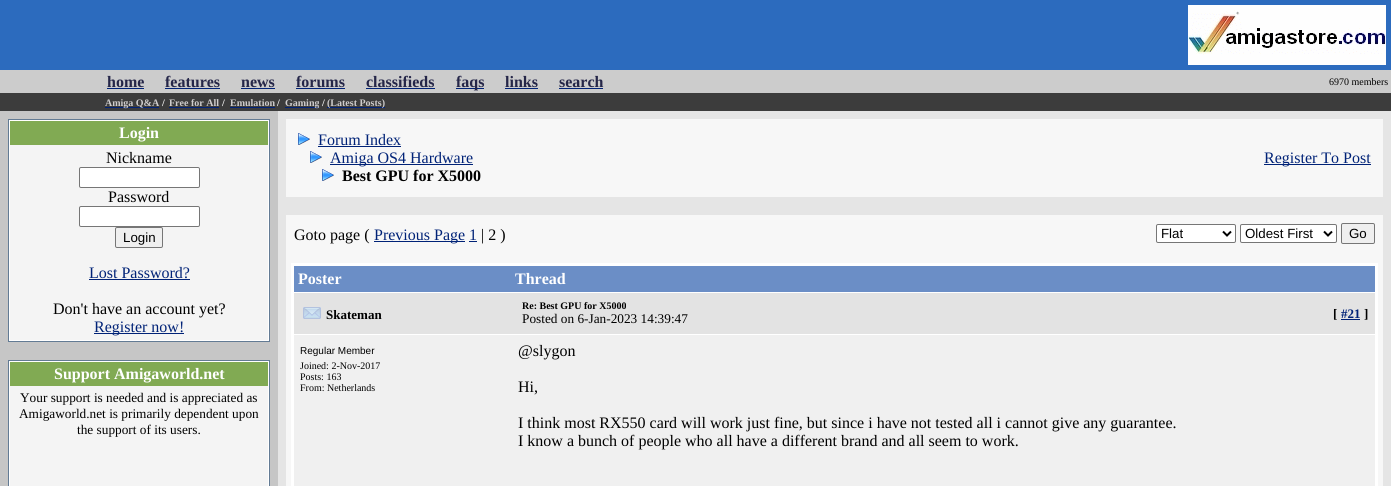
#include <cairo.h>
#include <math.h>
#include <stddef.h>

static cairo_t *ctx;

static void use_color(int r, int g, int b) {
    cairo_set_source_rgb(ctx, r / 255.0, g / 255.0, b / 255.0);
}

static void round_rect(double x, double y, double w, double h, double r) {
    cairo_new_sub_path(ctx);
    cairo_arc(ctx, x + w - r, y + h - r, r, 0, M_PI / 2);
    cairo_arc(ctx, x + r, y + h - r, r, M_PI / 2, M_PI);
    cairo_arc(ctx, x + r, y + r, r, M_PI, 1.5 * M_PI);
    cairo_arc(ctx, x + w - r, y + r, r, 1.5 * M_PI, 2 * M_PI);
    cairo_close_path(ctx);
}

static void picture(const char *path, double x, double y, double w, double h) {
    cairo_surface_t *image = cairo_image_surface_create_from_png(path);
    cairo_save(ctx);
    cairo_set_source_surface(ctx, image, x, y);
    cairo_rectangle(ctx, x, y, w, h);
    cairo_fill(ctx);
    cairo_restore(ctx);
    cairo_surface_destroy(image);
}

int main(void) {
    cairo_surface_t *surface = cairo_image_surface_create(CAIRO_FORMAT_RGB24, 1391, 486);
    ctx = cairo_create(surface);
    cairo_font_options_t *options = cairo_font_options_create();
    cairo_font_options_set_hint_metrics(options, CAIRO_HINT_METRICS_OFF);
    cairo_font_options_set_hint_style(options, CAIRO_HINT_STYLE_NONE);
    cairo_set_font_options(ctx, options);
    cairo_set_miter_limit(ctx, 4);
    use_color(204, 204, 204);
    cairo_paint(ctx);
    use_color(44, 107, 190);
    cairo_rectangle(ctx, 0, 0, 1391, 70);
    cairo_fill(ctx);
    picture("img1.png", 1188, 5, 198, 60);
    cairo_select_font_face(ctx, "Liberation Serif", CAIRO_FONT_SLANT_NORMAL, CAIRO_FONT_WEIGHT_BOLD);
    cairo_set_font_size(ctx, 16);
    use_color(37, 38, 72);
    cairo_move_to(ctx, 107, 87);
    cairo_show_text(ctx, "home");
    use_color(0, 34, 119);
    cairo_rectangle(ctx, 107, 88, 37, 1);
    cairo_fill(ctx);
    use_color(37, 38, 72);
    cairo_move_to(ctx, 165, 87);
    cairo_show_text(ctx, "features");
    use_color(0, 34, 119);
    cairo_rectangle(ctx, 165, 88, 55, 1);
    cairo_fill(ctx);
    use_color(37, 38, 72);
    cairo_move_to(ctx, 241, 87);
    cairo_show_text(ctx, "news");
    use_color(0, 34, 119);
    cairo_rectangle(ctx, 241, 88, 34, 1);
    cairo_fill(ctx);
    use_color(37, 38, 72);
    cairo_move_to(ctx, 296, 87);
    cairo_show_text(ctx, "forums");
    use_color(0, 34, 119);
    cairo_rectangle(ctx, 296, 88, 49, 1);
    cairo_fill(ctx);
    use_color(37, 38, 72);
    cairo_move_to(ctx, 366, 87);
    cairo_show_text(ctx, "classifieds");
    use_color(0, 34, 119);
    cairo_rectangle(ctx, 366, 88, 69, 1);
    cairo_fill(ctx);
    cairo_rectangle(ctx, 456, 88, 28, 1);
    cairo_fill(ctx);
    use_color(37, 38, 72);
    cairo_move_to(ctx, 456, 87);
    cairo_show_text(ctx, "faqs");
    cairo_move_to(ctx, 505, 87);
    cairo_show_text(ctx, "links");
    use_color(0, 34, 119);
    cairo_rectangle(ctx, 505, 88, 33, 1);
    cairo_fill(ctx);
    use_color(37, 38, 72);
    cairo_move_to(ctx, 559, 87);
    cairo_show_text(ctx, "search");
    use_color(0, 34, 119);
    cairo_rectangle(ctx, 559, 88, 44, 1);
    cairo_fill(ctx);
    cairo_select_font_face(ctx, "Liberation Serif", CAIRO_FONT_SLANT_NORMAL, CAIRO_FONT_WEIGHT_NORMAL);
    cairo_set_font_size(ctx, 10);
    use_color(0, 0, 0);
    cairo_move_to(ctx, 1329, 85);
    cairo_show_text(ctx, "6970 members");
    use_color(60, 60, 60);
    cairo_rectangle(ctx, 0, 93, 1391, 18);
    cairo_fill(ctx);
    use_color(0, 34, 119);
    cairo_rectangle(ctx, 105, 107, 54, 1);
    cairo_fill(ctx);
    cairo_select_font_face(ctx, "Liberation Serif", CAIRO_FONT_SLANT_NORMAL, CAIRO_FONT_WEIGHT_BOLD);
    use_color(207, 205, 205);
    cairo_move_to(ctx, 105, 106);
    cairo_show_text(ctx, "Amiga Q&A");
    use_color(255, 255, 255);
    cairo_move_to(ctx, 162, 106);
    cairo_show_text(ctx, "/");
    use_color(207, 205, 205);
    cairo_move_to(ctx, 169, 106);
    cairo_show_text(ctx, "Free for All");
    use_color(0, 34, 119);
    cairo_rectangle(ctx, 169, 107, 50, 1);
    cairo_fill(ctx);
    use_color(255, 255, 255);
    cairo_move_to(ctx, 222, 106);
    cairo_show_text(ctx, "/");
    use_color(207, 205, 205);
    cairo_move_to(ctx, 230, 106);
    cairo_show_text(ctx, "Emulation");
    use_color(0, 34, 119);
    cairo_rectangle(ctx, 230, 107, 45, 1);
    cairo_fill(ctx);
    use_color(255, 255, 255);
    cairo_move_to(ctx, 277, 106);
    cairo_show_text(ctx, "/");
    use_color(0, 34, 119);
    cairo_rectangle(ctx, 285, 107, 34, 1);
    cairo_fill(ctx);
    use_color(207, 205, 205);
    cairo_move_to(ctx, 285, 106);
    cairo_show_text(ctx, "Gaming");
    use_color(255, 255, 255);
    cairo_move_to(ctx, 322, 106);
    cairo_show_text(ctx, "/");
    use_color(0, 34, 119);
    cairo_rectangle(ctx, 327, 107, 58, 1);
    cairo_fill(ctx);
    use_color(207, 205, 205);
    cairo_move_to(ctx, 327, 106);
    cairo_show_text(ctx, "(Latest Posts)");
    use_color(198, 198, 198);
    cairo_rectangle(ctx, 0, 111, 278, 375);
    cairo_fill(ctx);
    use_color(99, 123, 148);
    cairo_rectangle(ctx, 8, 119, 262, 223);
    cairo_fill(ctx);
    use_color(255, 255, 255);
    cairo_rectangle(ctx, 9, 120, 260, 221);
    cairo_fill(ctx);
    use_color(129, 170, 83);
    cairo_rectangle(ctx, 10, 121, 258, 24);
    cairo_fill(ctx);
    cairo_set_font_size(ctx, 16);
    use_color(255, 255, 255);
    cairo_move_to(ctx, 119, 138);
    cairo_show_text(ctx, "Login");
    use_color(244, 244, 244);
    cairo_rectangle(ctx, 10, 145, 258, 195);
    cairo_fill(ctx);
    cairo_select_font_face(ctx, "Liberation Serif", CAIRO_FONT_SLANT_NORMAL, CAIRO_FONT_WEIGHT_NORMAL);
    use_color(0, 0, 0);
    cairo_move_to(ctx, 106, 163);
    cairo_show_text(ctx, "Nickname");
    use_color(255, 255, 255);
    round_rect(79.5, 167.5, 120, 20, 1.5);
    cairo_fill_preserve(ctx);
    use_color(118, 118, 118);
    cairo_set_line_width(ctx, 1);
    cairo_stroke(ctx);
    use_color(0, 0, 0);
    cairo_move_to(ctx, 108, 202);
    cairo_show_text(ctx, "Password");
    use_color(255, 255, 255);
    round_rect(79.5, 206.5, 120, 20, 1.5);
    cairo_fill_preserve(ctx);
    use_color(118, 118, 118);
    cairo_stroke(ctx);
    use_color(239, 239, 239);
    round_rect(115.5, 227.5, 47, 20, 1.5);
    cairo_fill_preserve(ctx);
    use_color(118, 118, 118);
    cairo_stroke(ctx);
    cairo_select_font_face(ctx, "Liberation Sans", CAIRO_FONT_SLANT_NORMAL, CAIRO_FONT_WEIGHT_NORMAL);
    cairo_set_font_size(ctx, 13.3);
    use_color(0, 0, 0);
    cairo_move_to(ctx, 123, 242);
    cairo_show_text(ctx, "Login");
    cairo_select_font_face(ctx, "Liberation Serif", CAIRO_FONT_SLANT_NORMAL, CAIRO_FONT_WEIGHT_NORMAL);
    cairo_set_font_size(ctx, 16);
    use_color(0, 34, 119);
    cairo_move_to(ctx, 89, 278);
    cairo_show_text(ctx, "Lost Password?");
    cairo_rectangle(ctx, 89, 279, 101, 1);
    cairo_fill(ctx);
    use_color(0, 0, 0);
    cairo_move_to(ctx, 53, 314);
    cairo_show_text(ctx, "Don't have an account yet?");
    use_color(0, 34, 119);
    cairo_rectangle(ctx, 94, 333, 90, 1);
    cairo_fill(ctx);
    cairo_move_to(ctx, 94, 332);
    cairo_show_text(ctx, "Register now!");
    use_color(99, 123, 148);
    cairo_rectangle(ctx, 8, 360, 262, 126);
    cairo_fill(ctx);
    use_color(255, 255, 255);
    cairo_rectangle(ctx, 9, 361, 260, 125);
    cairo_fill(ctx);
    use_color(129, 170, 83);
    cairo_rectangle(ctx, 10, 362, 258, 24);
    cairo_fill(ctx);
    cairo_select_font_face(ctx, "Liberation Serif", CAIRO_FONT_SLANT_NORMAL, CAIRO_FONT_WEIGHT_BOLD);
    use_color(255, 255, 255);
    cairo_move_to(ctx, 54, 379);
    cairo_show_text(ctx, "Support Amigaworld.net");
    use_color(244, 244, 244);
    cairo_rectangle(ctx, 10, 386, 258, 100);
    cairo_fill(ctx);
    cairo_select_font_face(ctx, "Liberation Serif", CAIRO_FONT_SLANT_NORMAL, CAIRO_FONT_WEIGHT_NORMAL);
    cairo_set_font_size(ctx, 13.3);
    use_color(0, 0, 0);
    cairo_move_to(ctx, 20, 402);
    cairo_show_text(ctx, "Your support is needed and is appreciated as");
    cairo_move_to(ctx, 19, 418);
    cairo_show_text(ctx, "Amigaworld.net is primarily dependent upon");
    cairo_move_to(ctx, 77, 434);
    cairo_show_text(ctx, "the support of its users.");
    use_color(229, 229, 229);
    cairo_rectangle(ctx, 278, 111, 1113, 375);
    cairo_fill(ctx);
    use_color(247, 247, 247);
    cairo_rectangle(ctx, 286, 119, 1097, 78);
    cairo_fill(ctx);
    picture("img2.png", 298, 133, 12, 12);
    cairo_set_font_size(ctx, 16);
    use_color(0, 34, 119);
    cairo_move_to(ctx, 318, 145);
    cairo_show_text(ctx, "Forum Index");
    cairo_rectangle(ctx, 318, 146, 83, 1);
    cairo_fill(ctx);
    picture("img2.png", 310, 151, 12, 12);
    cairo_rectangle(ctx, 330, 164, 143, 1);
    cairo_fill(ctx);
    cairo_move_to(ctx, 330, 163);
    cairo_show_text(ctx, "Amiga OS4 Hardware");
    picture("img2.png", 322, 169, 12, 12);
    cairo_select_font_face(ctx, "Liberation Serif", CAIRO_FONT_SLANT_NORMAL, CAIRO_FONT_WEIGHT_BOLD);
    use_color(0, 0, 0);
    cairo_move_to(ctx, 342, 181);
    cairo_show_text(ctx, "Best GPU for X5000");
    use_color(0, 34, 119);
    cairo_rectangle(ctx, 1264, 164, 107, 1);
    cairo_fill(ctx);
    cairo_select_font_face(ctx, "Liberation Serif", CAIRO_FONT_SLANT_NORMAL, CAIRO_FONT_WEIGHT_NORMAL);
    cairo_move_to(ctx, 1264, 163);
    cairo_show_text(ctx, "Register To Post");
    use_color(247, 247, 247);
    cairo_rectangle(ctx, 286, 215, 1097, 271);
    cairo_fill(ctx);
    use_color(0, 0, 0);
    cairo_move_to(ctx, 294, 240);
    cairo_show_text(ctx, "Goto page (");
    use_color(0, 34, 119);
    cairo_rectangle(ctx, 374, 241, 91, 1);
    cairo_fill(ctx);
    cairo_move_to(ctx, 374, 240);
    cairo_show_text(ctx, "Previous Page 1");
    use_color(0, 0, 0);
    cairo_move_to(ctx, 481, 240);
    cairo_show_text(ctx, "| 2 )");
    use_color(0, 34, 119);
    cairo_rectangle(ctx, 469, 241, 8, 1);
    cairo_fill(ctx);
    use_color(255, 255, 255);
    round_rect(1156.5, 224.5, 79, 18, 1.5);
    cairo_fill_preserve(ctx);
    use_color(118, 118, 118);
    cairo_stroke(ctx);
    cairo_new_path(ctx);
    cairo_move_to(ctx, 1223, 231.5);
    cairo_line_to(ctx, 1227, 235.5);
    cairo_line_to(ctx, 1231, 231.5);
    use_color(0, 0, 0);
    cairo_set_line_width(ctx, 2);
    cairo_stroke(ctx);
    cairo_select_font_face(ctx, "Liberation Sans", CAIRO_FONT_SLANT_NORMAL, CAIRO_FONT_WEIGHT_NORMAL);
    cairo_set_font_size(ctx, 13.3);
    cairo_move_to(ctx, 1161, 238);
    cairo_show_text(ctx, "Flat");
    use_color(255, 255, 255);
    round_rect(1240.5, 224.5, 96, 18, 1.5);
    cairo_fill_preserve(ctx);
    use_color(118, 118, 118);
    cairo_set_line_width(ctx, 1);
    cairo_stroke(ctx);
    cairo_new_path(ctx);
    cairo_move_to(ctx, 1324, 231.5);
    cairo_line_to(ctx, 1328, 235.5);
    cairo_line_to(ctx, 1332, 231.5);
    use_color(0, 0, 0);
    cairo_set_line_width(ctx, 2);
    cairo_stroke(ctx);
    cairo_move_to(ctx, 1245, 238);
    cairo_show_text(ctx, "Oldest First");
    use_color(239, 239, 239);
    round_rect(1341.5, 223.5, 33, 20, 1.5);
    cairo_fill_preserve(ctx);
    use_color(118, 118, 118);
    cairo_set_line_width(ctx, 1);
    cairo_stroke(ctx);
    use_color(0, 0, 0);
    cairo_move_to(ctx, 1349, 238);
    cairo_show_text(ctx, "Go");
    use_color(255, 255, 255);
    cairo_rectangle(ctx, 291, 263, 1087, 223);
    cairo_fill(ctx);
    use_color(107, 142, 198);
    cairo_rectangle(ctx, 294, 266, 1081, 26);
    cairo_fill(ctx);
    cairo_select_font_face(ctx, "Liberation Serif", CAIRO_FONT_SLANT_NORMAL, CAIRO_FONT_WEIGHT_BOLD);
    cairo_set_font_size(ctx, 16);
    use_color(255, 255, 255);
    cairo_move_to(ctx, 298, 284);
    cairo_show_text(ctx, "Poster");
    cairo_move_to(ctx, 515, 284);
    cairo_show_text(ctx, "Thread");
    use_color(227, 227, 227);
    cairo_rectangle(ctx, 294, 293, 1081, 41);
    cairo_fill(ctx);
    picture("img3.png", 303, 307, 18, 12);
    cairo_set_font_size(ctx, 13);
    use_color(0, 0, 0);
    cairo_move_to(ctx, 326, 319);
    cairo_show_text(ctx, "Skateman");
    cairo_set_font_size(ctx, 10);
    cairo_move_to(ctx, 522, 309);
    cairo_show_text(ctx, "Re: Best GPU for X5000");
    cairo_select_font_face(ctx, "Liberation Serif", CAIRO_FONT_SLANT_NORMAL, CAIRO_FONT_WEIGHT_NORMAL);
    cairo_set_font_size(ctx, 13.3);
    cairo_move_to(ctx, 522, 323);
    cairo_show_text(ctx, "Posted on 6-Jan-2023 14:39:47");
    cairo_select_font_face(ctx, "Liberation Serif", CAIRO_FONT_SLANT_NORMAL, CAIRO_FONT_WEIGHT_BOLD);
    cairo_set_font_size(ctx, 13);
    cairo_move_to(ctx, 1333, 318);
    cairo_show_text(ctx, "[");
    use_color(0, 34, 119);
    cairo_move_to(ctx, 1341, 318);
    cairo_show_text(ctx, "#21");
    cairo_rectangle(ctx, 1341, 319, 19, 1);
    cairo_fill(ctx);
    use_color(0, 0, 0);
    cairo_move_to(ctx, 1364, 318);
    cairo_show_text(ctx, "]");
    use_color(240, 240, 240);
    cairo_rectangle(ctx, 294, 335, 1081, 151);
    cairo_fill(ctx);
    cairo_select_font_face(ctx, "Liberation Sans", CAIRO_FONT_SLANT_NORMAL, CAIRO_FONT_WEIGHT_NORMAL);
    cairo_set_font_size(ctx, 10);
    use_color(0, 0, 0);
    cairo_move_to(ctx, 300, 354);
    cairo_show_text(ctx, "Regular Member");
    cairo_select_font_face(ctx, "Liberation Serif", CAIRO_FONT_SLANT_NORMAL, CAIRO_FONT_WEIGHT_NORMAL);
    cairo_move_to(ctx, 300, 369);
    cairo_show_text(ctx, "Joined: 2-Nov-2017");
    cairo_move_to(ctx, 300, 380);
    cairo_show_text(ctx, "Posts: 163");
    cairo_move_to(ctx, 300, 391);
    cairo_show_text(ctx, "From: Netherlands");
    cairo_set_font_size(ctx, 16);
    cairo_move_to(ctx, 518, 356);
    cairo_show_text(ctx, "@slygon");
    cairo_move_to(ctx, 518, 392);
    cairo_show_text(ctx, "Hi,");
    cairo_move_to(ctx, 518, 428);
    cairo_show_text(ctx, "I think most RX550 card will work just fine, but since i have not tested all i cannot give any guarantee.");
    cairo_move_to(ctx, 518, 446);
    cairo_show_text(ctx, "I know a bunch of people who all have a different brand and all seem to work.");
    cairo_surface_write_to_png(surface, "result.png");
    cairo_font_options_destroy(options);
    cairo_destroy(ctx);
    cairo_surface_destroy(surface);
    return 0;
}
